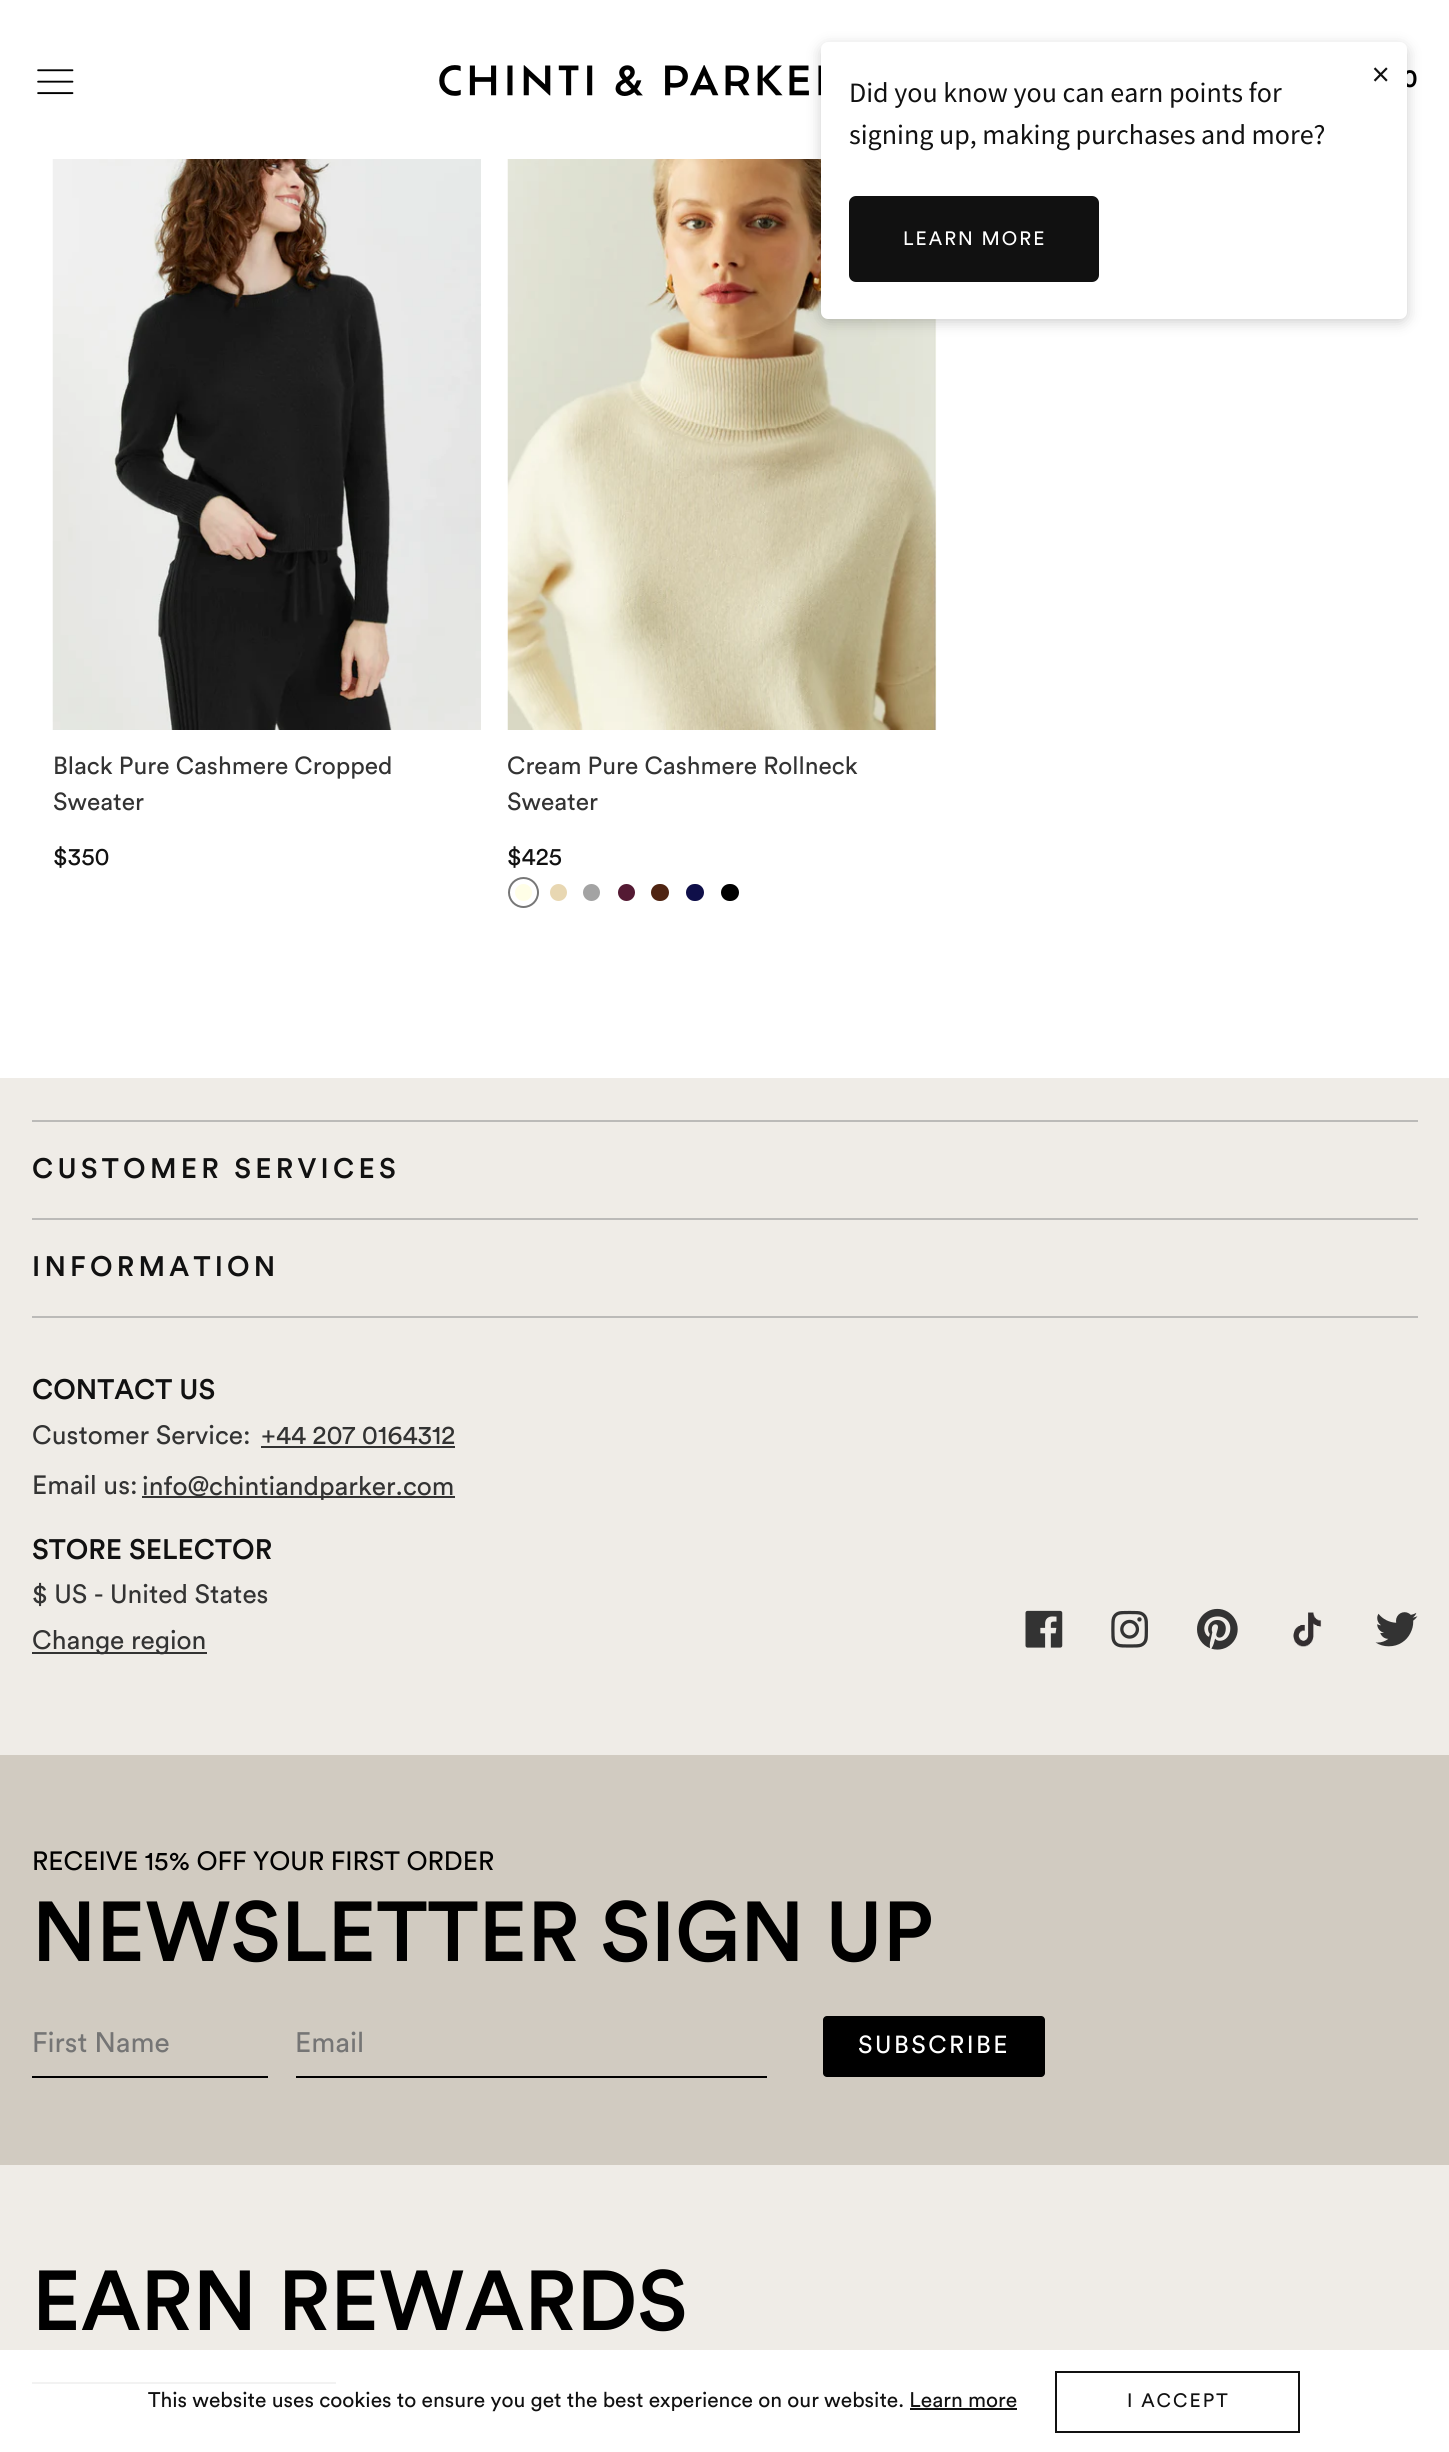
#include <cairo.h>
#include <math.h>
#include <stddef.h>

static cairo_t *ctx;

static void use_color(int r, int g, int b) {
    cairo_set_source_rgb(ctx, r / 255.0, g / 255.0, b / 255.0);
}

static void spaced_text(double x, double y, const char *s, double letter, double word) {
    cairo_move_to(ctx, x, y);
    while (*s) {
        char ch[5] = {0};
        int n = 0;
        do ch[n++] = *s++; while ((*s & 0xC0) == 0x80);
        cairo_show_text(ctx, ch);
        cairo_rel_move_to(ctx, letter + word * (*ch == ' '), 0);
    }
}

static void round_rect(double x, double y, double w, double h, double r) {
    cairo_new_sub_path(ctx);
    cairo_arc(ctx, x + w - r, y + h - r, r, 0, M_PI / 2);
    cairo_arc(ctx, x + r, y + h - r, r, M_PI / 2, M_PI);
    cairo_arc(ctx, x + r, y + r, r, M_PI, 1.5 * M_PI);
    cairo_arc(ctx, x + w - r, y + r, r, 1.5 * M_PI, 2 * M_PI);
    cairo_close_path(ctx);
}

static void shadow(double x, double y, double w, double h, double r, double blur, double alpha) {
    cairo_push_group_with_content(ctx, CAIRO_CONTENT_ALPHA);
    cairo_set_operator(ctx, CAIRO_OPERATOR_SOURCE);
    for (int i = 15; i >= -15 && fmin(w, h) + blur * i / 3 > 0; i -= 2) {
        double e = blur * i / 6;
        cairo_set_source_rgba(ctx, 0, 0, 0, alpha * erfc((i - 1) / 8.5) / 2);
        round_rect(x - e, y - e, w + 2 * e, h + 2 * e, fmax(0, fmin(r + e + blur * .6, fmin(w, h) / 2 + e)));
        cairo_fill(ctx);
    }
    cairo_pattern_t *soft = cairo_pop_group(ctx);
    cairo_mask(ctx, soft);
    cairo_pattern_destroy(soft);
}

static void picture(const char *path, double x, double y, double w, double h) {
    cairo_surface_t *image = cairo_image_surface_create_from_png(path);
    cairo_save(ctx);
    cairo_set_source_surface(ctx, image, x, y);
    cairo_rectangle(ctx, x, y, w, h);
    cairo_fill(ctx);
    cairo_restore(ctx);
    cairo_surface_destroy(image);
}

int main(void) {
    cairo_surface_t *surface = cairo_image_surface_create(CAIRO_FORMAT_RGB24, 1449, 2452);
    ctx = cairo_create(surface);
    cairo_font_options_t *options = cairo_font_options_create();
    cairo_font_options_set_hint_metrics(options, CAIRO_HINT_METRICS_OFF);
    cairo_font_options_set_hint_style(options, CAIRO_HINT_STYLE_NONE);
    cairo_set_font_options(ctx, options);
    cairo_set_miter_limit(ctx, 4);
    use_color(255, 255, 255);
    cairo_paint(ctx);
    picture("img2.png", 439, 65, 382, 31);
    picture("img4.png", 507, 159, 430, 571);
    use_color(0, 0, 0);
    shadow(821, 46, 586, 276, 7, 7, 0.2);
    cairo_select_font_face(ctx, "Circular", CAIRO_FONT_SLANT_NORMAL, CAIRO_FONT_WEIGHT_BOLD);
    cairo_set_font_size(ctx, 24.5);
    use_color(0, 0, 0);
    cairo_move_to(ctx, 1402, 87);
    cairo_show_text(ctx, "0");
    use_color(255, 255, 255);
    round_rect(821, 42, 586, 277, 7);
    cairo_fill(ctx);
    cairo_select_font_face(ctx, "Source Sans Pro", CAIRO_FONT_SLANT_NORMAL, CAIRO_FONT_WEIGHT_NORMAL);
    cairo_set_font_size(ctx, 35);
    use_color(17, 17, 17);
    cairo_move_to(ctx, 1372, 86);
    cairo_show_text(ctx, "×");
    cairo_set_font_size(ctx, 28);
    cairo_move_to(ctx, 849, 102);
    cairo_show_text(ctx, "Did you know you can earn points for");
    cairo_move_to(ctx, 849, 144);
    cairo_show_text(ctx, "signing up, making purchases and more?");
    round_rect(850, 197, 248, 84, 6);
    cairo_fill_preserve(ctx);
    cairo_stroke(ctx);
    cairo_select_font_face(ctx, "Circular", CAIRO_FONT_SLANT_NORMAL, CAIRO_FONT_WEIGHT_NORMAL);
    cairo_set_font_size(ctx, 19.25);
    use_color(255, 255, 255);
    spaced_text(903, 245, "LEARN MORE", 2, 0);
    picture("img1.png", 37, 69, 37, 26);
    picture("img3.png", 52, 159, 429, 571);
    cairo_set_font_size(ctx, 24.5);
    use_color(51, 51, 51);
    cairo_move_to(ctx, 53, 774);
    cairo_show_text(ctx, "Black Pure Cashmere Cropped");
    cairo_move_to(ctx, 53, 810);
    cairo_show_text(ctx, "Sweater");
    use_color(17, 17, 17);
    cairo_move_to(ctx, 53, 865);
    cairo_show_text(ctx, "$350");
    use_color(51, 51, 51);
    cairo_move_to(ctx, 507, 774);
    cairo_show_text(ctx, "Cream Pure Cashmere Rollneck");
    cairo_move_to(ctx, 507, 810);
    cairo_show_text(ctx, "Sweater");
    use_color(17, 17, 17);
    cairo_move_to(ctx, 507, 865);
    cairo_show_text(ctx, "$425");
    cairo_new_path(ctx);
    cairo_arc(ctx, 523.5, 892.5, 14.5, 0, 2 * M_PI);
    use_color(119, 119, 119);
    cairo_stroke(ctx);
    use_color(255, 254, 231);
    cairo_arc(ctx, 523.5, 892.5, 8.5, 0, 2 * M_PI);
    cairo_fill(ctx);
    use_color(232, 215, 178);
    cairo_arc(ctx, 558.5, 892.5, 8.5, 0, 2 * M_PI);
    cairo_fill(ctx);
    use_color(163, 163, 163);
    cairo_arc(ctx, 591.5, 892.5, 8.5, 0, 2 * M_PI);
    cairo_fill(ctx);
    use_color(84, 26, 51);
    cairo_arc(ctx, 626.5, 892.5, 8.5, 0, 2 * M_PI);
    cairo_fill(ctx);
    use_color(79, 36, 18);
    round_rect(651, 884, 18, 17, 8.5);
    cairo_fill(ctx);
    use_color(15, 15, 73);
    round_rect(686, 884, 18, 17, 8.5);
    cairo_fill(ctx);
    use_color(0, 0, 0);
    round_rect(721, 884, 18, 17, 8.5);
    cairo_fill(ctx);
    use_color(239, 236, 231);
    cairo_rectangle(ctx, 0, 1078, 1449, 1272);
    cairo_fill(ctx);
    use_color(187, 186, 184);
    cairo_rectangle(ctx, 32, 1120, 1386, 2);
    cairo_fill(ctx);
    cairo_select_font_face(ctx, "Circular Medium", CAIRO_FONT_SLANT_NORMAL, CAIRO_FONT_WEIGHT_NORMAL);
    cairo_set_font_size(ctx, 28);
    use_color(17, 17, 17);
    spaced_text(32, 1178, "CUSTOMER SERVICES", 4.25, 0);
    use_color(187, 186, 184);
    cairo_rectangle(ctx, 32, 1218, 1386, 2);
    cairo_fill(ctx);
    use_color(17, 17, 17);
    spaced_text(32, 1276, "INFORMATION", 4.25, 0);
    use_color(187, 186, 184);
    cairo_rectangle(ctx, 32, 1316, 1386, 2);
    cairo_fill(ctx);
    use_color(17, 17, 17);
    cairo_move_to(ctx, 32, 1399);
    cairo_show_text(ctx, "CONTACT US");
    cairo_select_font_face(ctx, "Circular", CAIRO_FONT_SLANT_NORMAL, CAIRO_FONT_WEIGHT_NORMAL);
    cairo_set_font_size(ctx, 26.25);
    use_color(51, 51, 51);
    cairo_move_to(ctx, 32, 1444);
    cairo_show_text(ctx, "Customer Service:");
    cairo_move_to(ctx, 261, 1444);
    cairo_show_text(ctx, "+44 207 0164312");
    cairo_rectangle(ctx, 261, 1446, 194, 2);
    cairo_fill(ctx);
    cairo_move_to(ctx, 32, 1494);
    cairo_show_text(ctx, "Email us:");
    cairo_move_to(ctx, 142, 1495);
    cairo_show_text(ctx, "info@chintiandparker.com");
    cairo_rectangle(ctx, 142, 1496, 313, 2);
    cairo_fill(ctx);
    cairo_select_font_face(ctx, "Circular Medium", CAIRO_FONT_SLANT_NORMAL, CAIRO_FONT_WEIGHT_NORMAL);
    cairo_set_font_size(ctx, 28);
    use_color(17, 17, 17);
    cairo_move_to(ctx, 32, 1559);
    cairo_show_text(ctx, "STORE SELECTOR");
    cairo_select_font_face(ctx, "Circular", CAIRO_FONT_SLANT_NORMAL, CAIRO_FONT_WEIGHT_NORMAL);
    cairo_set_font_size(ctx, 26.25);
    use_color(51, 51, 51);
    cairo_move_to(ctx, 32, 1603);
    cairo_show_text(ctx, "$ US - United States");
    cairo_move_to(ctx, 32, 1649);
    cairo_show_text(ctx, "Change region");
    cairo_rectangle(ctx, 32, 1652, 175, 2);
    cairo_fill(ctx);
    picture("img5.png", 1025, 1610, 38, 38);
    picture("img6.png", 1111, 1610, 37, 38);
    picture("img7.png", 1197, 1608, 41, 42);
    picture("img8.png", 1293, 1612, 29, 35);
    picture("img9.png", 1375, 1612, 43, 35);
    use_color(209, 203, 193);
    cairo_rectangle(ctx, 0, 1755, 1449, 410);
    cairo_fill(ctx);
    use_color(0, 0, 0);
    cairo_move_to(ctx, 32, 1870);
    cairo_show_text(ctx, "RECEIVE 15% OFF YOUR FIRST ORDER");
    cairo_select_font_face(ctx, "Circular Medium", CAIRO_FONT_SLANT_NORMAL, CAIRO_FONT_WEIGHT_NORMAL);
    cairo_set_font_size(ctx, 84);
    cairo_move_to(ctx, 32, 1961);
    cairo_show_text(ctx, "NEWSLETTER SIGN UP");
    cairo_rectangle(ctx, 32, 2076, 236, 2);
    cairo_fill(ctx);
    cairo_select_font_face(ctx, "Circular", CAIRO_FONT_SLANT_NORMAL, CAIRO_FONT_WEIGHT_NORMAL);
    cairo_set_font_size(ctx, 28);
    use_color(117, 117, 117);
    cairo_move_to(ctx, 32, 2052);
    cairo_show_text(ctx, "First Name");
    use_color(0, 0, 0);
    cairo_rectangle(ctx, 296, 2076, 471, 2);
    cairo_fill(ctx);
    use_color(117, 117, 117);
    cairo_move_to(ctx, 295, 2052);
    cairo_show_text(ctx, "Email");
    use_color(0, 0, 0);
    round_rect(823, 2016, 222, 61, 4);
    cairo_fill(ctx);
    cairo_set_font_size(ctx, 24.5);
    use_color(255, 255, 255);
    spaced_text(858, 2053, "SUBSCRIBE", 2.5, 0);
    cairo_select_font_face(ctx, "Circular Medium", CAIRO_FONT_SLANT_NORMAL, CAIRO_FONT_WEIGHT_NORMAL);
    cairo_set_font_size(ctx, 84);
    use_color(0, 0, 0);
    cairo_move_to(ctx, 32, 2330);
    cairo_show_text(ctx, "EARN REWARDS");
    use_color(242, 242, 242);
    cairo_rectangle(ctx, 32, 2382, 304, 2);
    cairo_fill(ctx);
    cairo_select_font_face(ctx, "Circular", CAIRO_FONT_SLANT_NORMAL, CAIRO_FONT_WEIGHT_NORMAL);
    cairo_set_font_size(ctx, 21);
    use_color(17, 17, 17);
    cairo_move_to(ctx, 148, 2407);
    cairo_show_text(ctx, "This website uses cookies to ensure you get the best experience on our website. Learn more");
    cairo_rectangle(ctx, 910, 2408, 107, 2);
    cairo_fill(ctx);
    cairo_rectangle(ctx, 1056, 2372, 243, 60);
    cairo_stroke(ctx);
    cairo_set_font_size(ctx, 19.25);
    spaced_text(1127, 2407, "I ACCEPT", 2, 0);
    cairo_surface_write_to_png(surface, "result.png");
    cairo_font_options_destroy(options);
    cairo_destroy(ctx);
    cairo_surface_destroy(surface);
    return 0;
}
